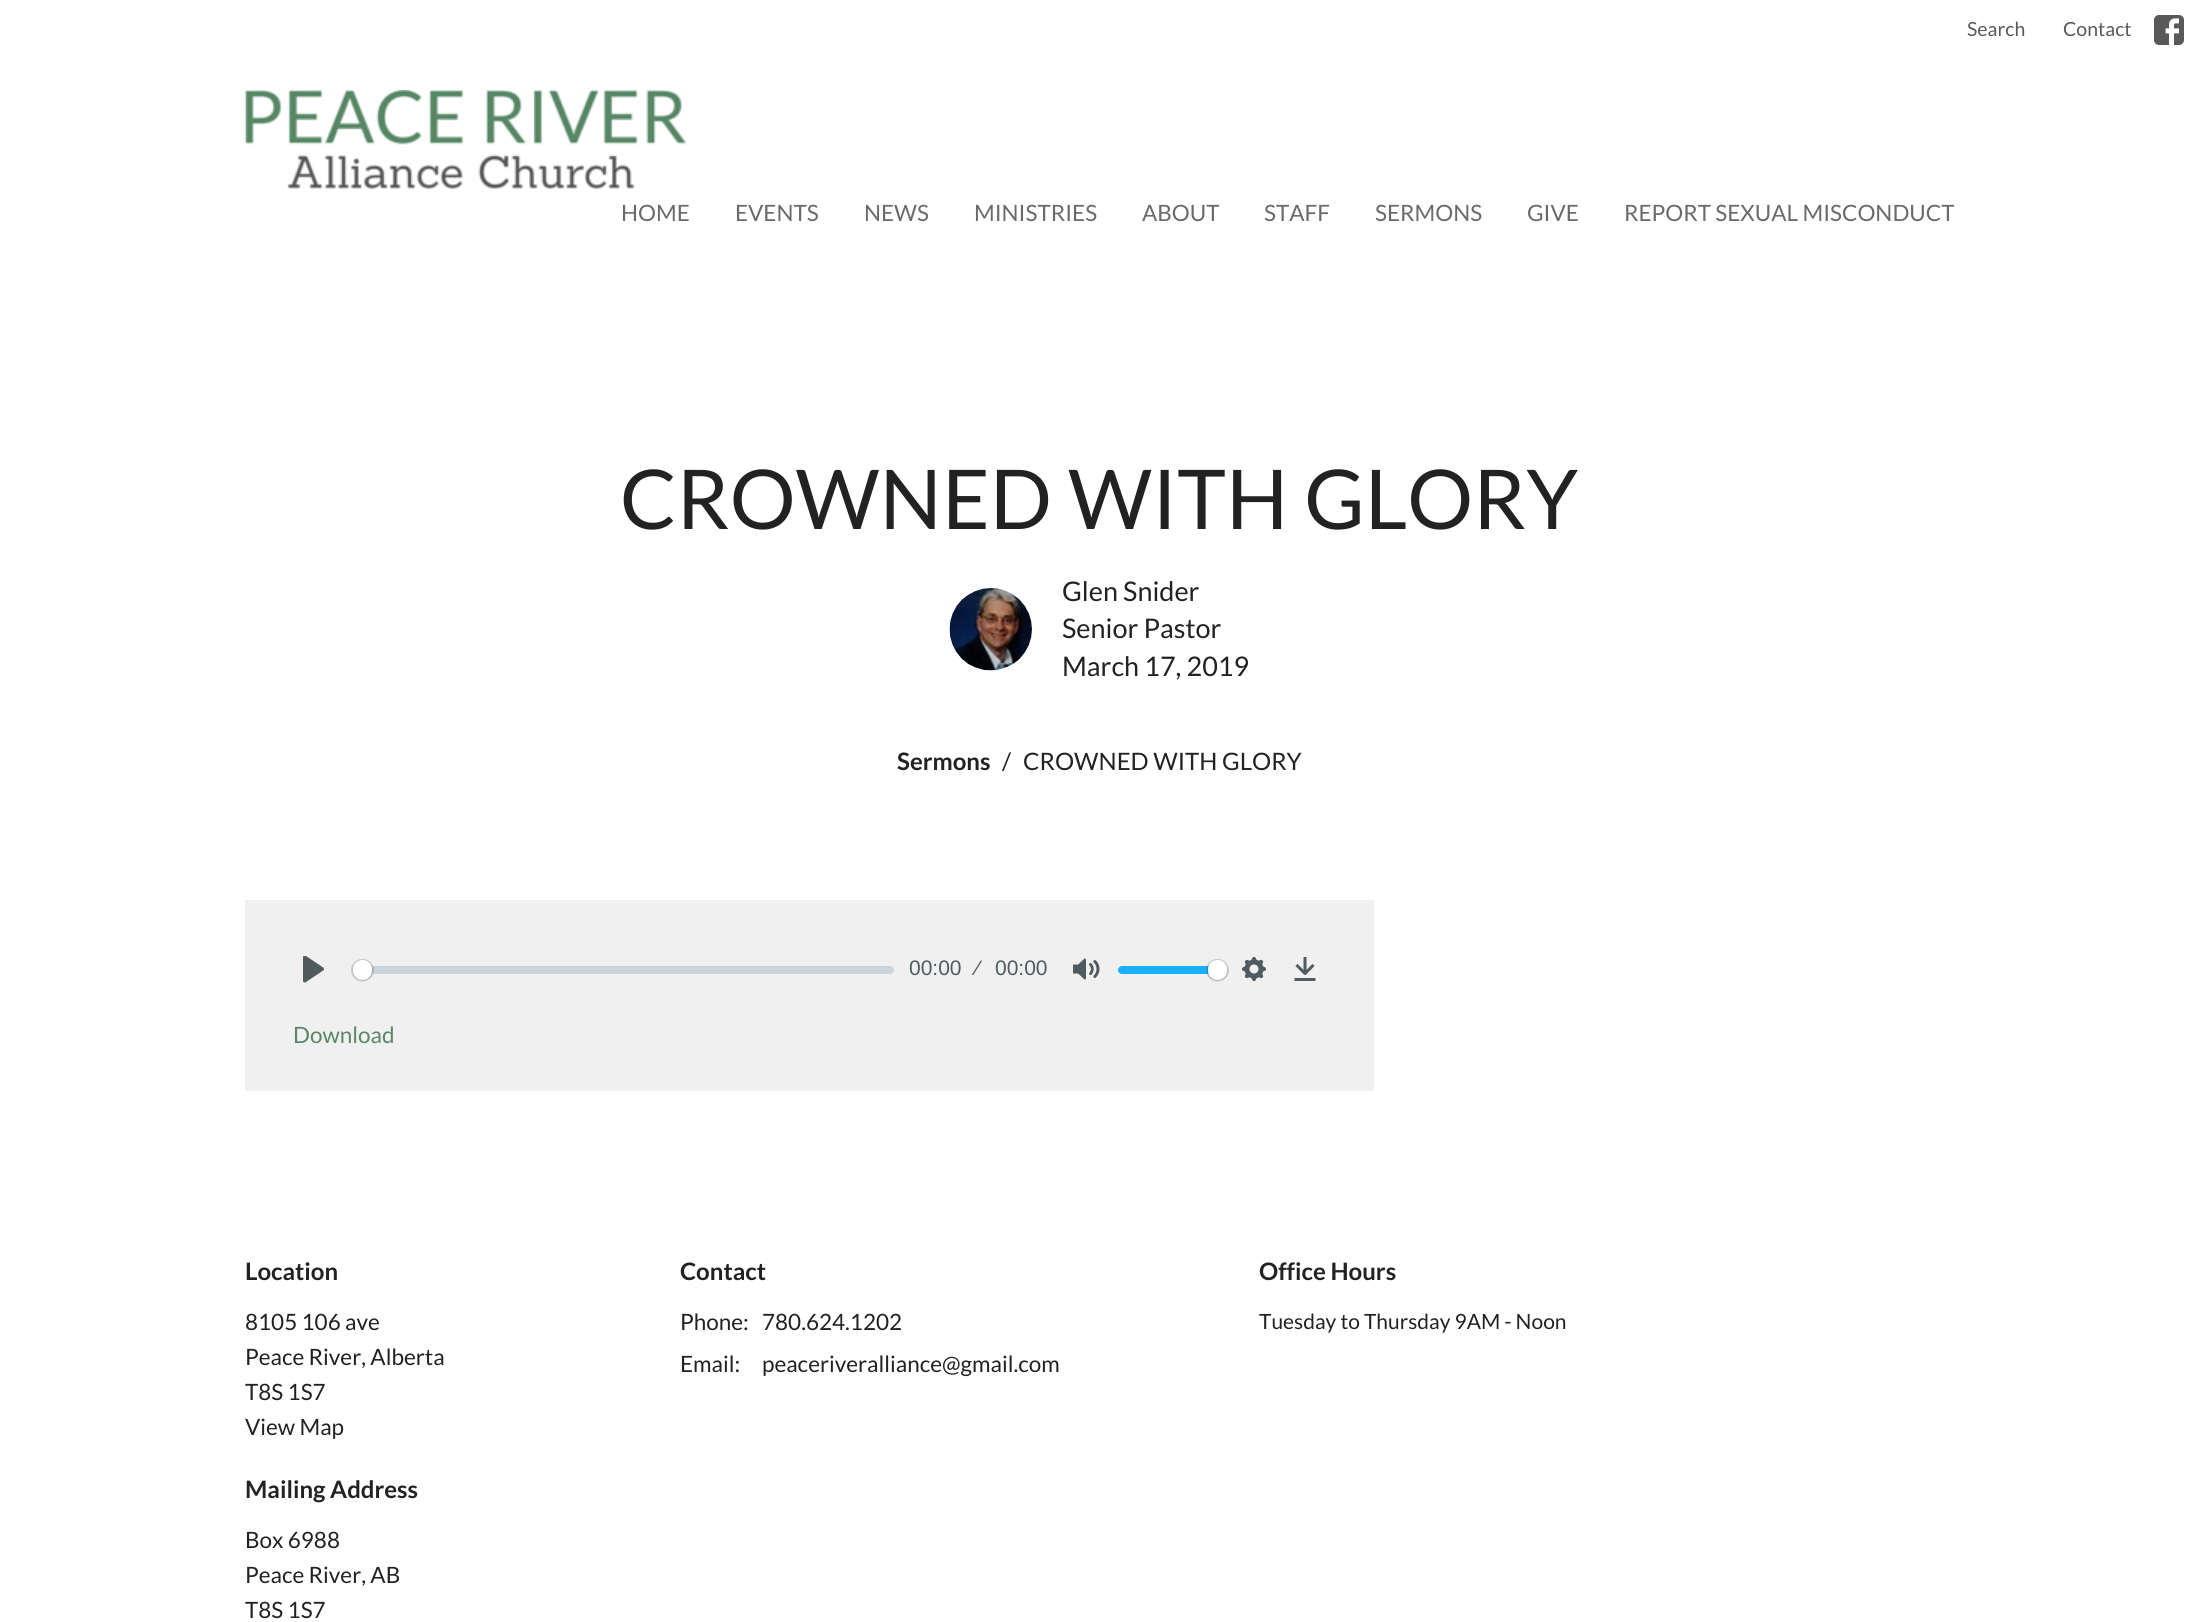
#include <cairo.h>
#include <math.h>
#include <stddef.h>

static cairo_t *ctx;

static void use_color(int r, int g, int b) {
    cairo_set_source_rgb(ctx, r / 255.0, g / 255.0, b / 255.0);
}

static void round_rect(double x, double y, double w, double h, double r) {
    cairo_new_sub_path(ctx);
    cairo_arc(ctx, x + w - r, y + h - r, r, 0, M_PI / 2);
    cairo_arc(ctx, x + r, y + h - r, r, M_PI / 2, M_PI);
    cairo_arc(ctx, x + r, y + r, r, M_PI, 1.5 * M_PI);
    cairo_arc(ctx, x + w - r, y + r, r, 1.5 * M_PI, 2 * M_PI);
    cairo_close_path(ctx);
}

static void shadow(double x, double y, double w, double h, double r, double blur, double alpha) {
    cairo_push_group_with_content(ctx, CAIRO_CONTENT_ALPHA);
    cairo_set_operator(ctx, CAIRO_OPERATOR_SOURCE);
    for (int i = 15; i >= -15 && fmin(w, h) + blur * i / 3 > 0; i -= 2) {
        double e = blur * i / 6;
        cairo_set_source_rgba(ctx, 0, 0, 0, alpha * erfc((i - 1) / 8.5) / 2);
        round_rect(x - e, y - e, w + 2 * e, h + 2 * e, fmax(0, fmin(r + e + blur * .6, fmin(w, h) / 2 + e)));
        cairo_fill(ctx);
    }
    cairo_pattern_t *soft = cairo_pop_group(ctx);
    cairo_mask(ctx, soft);
    cairo_pattern_destroy(soft);
}

static void picture(const char *path, double x, double y, double w, double h) {
    cairo_surface_t *image = cairo_image_surface_create_from_png(path);
    cairo_save(ctx);
    cairo_set_source_surface(ctx, image, x, y);
    cairo_rectangle(ctx, x, y, w, h);
    cairo_fill(ctx);
    cairo_restore(ctx);
    cairo_surface_destroy(image);
}

int main(void) {
    cairo_surface_t *surface = cairo_image_surface_create(CAIRO_FORMAT_RGB24, 2199, 1622);
    ctx = cairo_create(surface);
    cairo_font_options_t *options = cairo_font_options_create();
    cairo_font_options_set_hint_metrics(options, CAIRO_HINT_METRICS_OFF);
    cairo_font_options_set_hint_style(options, CAIRO_HINT_STYLE_NONE);
    cairo_set_font_options(ctx, options);
    cairo_set_miter_limit(ctx, 4);
    use_color(255, 255, 255);
    cairo_paint(ctx);
    cairo_select_font_face(ctx, "Lato", CAIRO_FONT_SLANT_NORMAL, CAIRO_FONT_WEIGHT_NORMAL);
    cairo_set_font_size(ctx, 19.5);
    use_color(89, 89, 89);
    cairo_move_to(ctx, 1967, 36);
    cairo_show_text(ctx, "Search");
    cairo_move_to(ctx, 2063, 36);
    cairo_show_text(ctx, "Contact");
    picture("img1.png", 2154, 15, 30, 30);
    picture("img2.png", 244, 90, 443, 99);
    cairo_set_font_size(ctx, 22.5);
    use_color(106, 106, 106);
    cairo_move_to(ctx, 621, 221);
    cairo_show_text(ctx, "HOME");
    cairo_move_to(ctx, 735, 221);
    cairo_show_text(ctx, "EVENTS");
    cairo_move_to(ctx, 864, 221);
    cairo_show_text(ctx, "NEWS");
    cairo_move_to(ctx, 974, 221);
    cairo_show_text(ctx, "MINISTRIES");
    cairo_move_to(ctx, 1142, 221);
    cairo_show_text(ctx, "ABOUT");
    cairo_move_to(ctx, 1264, 221);
    cairo_show_text(ctx, "STAFF");
    cairo_move_to(ctx, 1375, 221);
    cairo_show_text(ctx, "SERMONS");
    cairo_move_to(ctx, 1527, 221);
    cairo_show_text(ctx, "GIVE");
    cairo_move_to(ctx, 1624, 221);
    cairo_show_text(ctx, "REPORT SEXUAL MISCONDUCT");
    cairo_set_font_size(ctx, 82.5);
    use_color(34, 34, 34);
    cairo_move_to(ctx, 620, 529);
    cairo_show_text(ctx, "CROWNED WITH GLORY");
    picture("img3.png", 949, 588, 83, 83);
    cairo_set_font_size(ctx, 27);
    cairo_move_to(ctx, 1062, 601);
    cairo_show_text(ctx, "Glen Snider");
    cairo_move_to(ctx, 1062, 638);
    cairo_show_text(ctx, "Senior Pastor");
    cairo_move_to(ctx, 1062, 676);
    cairo_show_text(ctx, "March 17, 2019");
    cairo_select_font_face(ctx, "Lato", CAIRO_FONT_SLANT_NORMAL, CAIRO_FONT_WEIGHT_BOLD);
    cairo_set_font_size(ctx, 24);
    cairo_move_to(ctx, 897, 770);
    cairo_show_text(ctx, "Sermons");
    cairo_select_font_face(ctx, "Lato", CAIRO_FONT_SLANT_NORMAL, CAIRO_FONT_WEIGHT_NORMAL);
    cairo_move_to(ctx, 1002, 770);
    cairo_show_text(ctx, "/");
    cairo_move_to(ctx, 1023, 770);
    cairo_show_text(ctx, "CROWNED WITH GLORY");
    use_color(240, 240, 240);
    cairo_rectangle(ctx, 245, 900, 1129, 191);
    cairo_fill(ctx);
    picture("img4.png", 303, 956, 21, 27);
    cairo_set_source_rgba(ctx, 0.718, 0.773, 0.804, 0.66);
    round_rect(353, 966, 541, 8, 4);
    cairo_fill(ctx);
    round_rect(352, 960, 21, 20, 10);
    cairo_set_source_rgba(ctx, 0.184, 0.204, 0.239, 0.2);
    cairo_stroke(ctx);
    use_color(0, 0, 0);
    shadow(353, 962, 19, 19, 9.5, 1, 0.15);
    use_color(255, 255, 255);
    round_rect(353, 960, 19, 20, 9.5);
    cairo_fill(ctx);
    cairo_select_font_face(ctx, "Liberation Sans", CAIRO_FONT_SLANT_NORMAL, CAIRO_FONT_WEIGHT_NORMAL);
    cairo_set_font_size(ctx, 21);
    use_color(79, 91, 95);
    cairo_move_to(ctx, 909, 975);
    cairo_show_text(ctx, "00:00");
    cairo_move_to(ctx, 976, 975);
    cairo_show_text(ctx, "⁄");
    cairo_move_to(ctx, 995, 975);
    cairo_show_text(ctx, "00:00");
    picture("img5.png", 1073, 958, 27, 22);
    use_color(26, 175, 255);
    round_rect(1118, 966, 109, 8, 4);
    cairo_fill(ctx);
    round_rect(1207, 960, 21, 20, 10);
    cairo_set_source_rgba(ctx, 0.184, 0.204, 0.239, 0.2);
    cairo_stroke(ctx);
    use_color(0, 0, 0);
    shadow(1208, 962, 19, 19, 9.5, 1, 0.15);
    use_color(255, 255, 255);
    round_rect(1208, 960, 19, 20, 9.5);
    cairo_fill(ctx);
    picture("img6.png", 1242, 957, 24, 24);
    picture("img7.png", 1294, 957, 22, 24);
    cairo_select_font_face(ctx, "Lato", CAIRO_FONT_SLANT_NORMAL, CAIRO_FONT_WEIGHT_NORMAL);
    cairo_set_font_size(ctx, 22.5);
    use_color(90, 136, 102);
    cairo_move_to(ctx, 293, 1043);
    cairo_show_text(ctx, "Download");
    cairo_select_font_face(ctx, "Lato", CAIRO_FONT_SLANT_NORMAL, CAIRO_FONT_WEIGHT_BOLD);
    cairo_set_font_size(ctx, 24);
    use_color(34, 34, 34);
    cairo_move_to(ctx, 245, 1280);
    cairo_show_text(ctx, "Location");
    cairo_select_font_face(ctx, "Lato", CAIRO_FONT_SLANT_NORMAL, CAIRO_FONT_WEIGHT_NORMAL);
    cairo_set_font_size(ctx, 22.5);
    cairo_move_to(ctx, 245, 1330);
    cairo_show_text(ctx, "8105 106 ave");
    cairo_move_to(ctx, 245, 1365);
    cairo_show_text(ctx, "Peace River, Alberta");
    cairo_move_to(ctx, 245, 1400);
    cairo_show_text(ctx, "T8S 1S7");
    cairo_move_to(ctx, 245, 1435);
    cairo_show_text(ctx, "View Map");
    cairo_select_font_face(ctx, "Lato", CAIRO_FONT_SLANT_NORMAL, CAIRO_FONT_WEIGHT_BOLD);
    cairo_set_font_size(ctx, 24);
    cairo_move_to(ctx, 245, 1498);
    cairo_show_text(ctx, "Mailing Address");
    cairo_select_font_face(ctx, "Lato", CAIRO_FONT_SLANT_NORMAL, CAIRO_FONT_WEIGHT_NORMAL);
    cairo_set_font_size(ctx, 22.5);
    cairo_move_to(ctx, 245, 1548);
    cairo_show_text(ctx, "Box 6988");
    cairo_move_to(ctx, 245, 1583);
    cairo_show_text(ctx, "Peace River, AB");
    cairo_move_to(ctx, 245, 1618);
    cairo_show_text(ctx, "T8S 1S7");
    cairo_select_font_face(ctx, "Lato", CAIRO_FONT_SLANT_NORMAL, CAIRO_FONT_WEIGHT_BOLD);
    cairo_set_font_size(ctx, 24);
    cairo_move_to(ctx, 680, 1280);
    cairo_show_text(ctx, "Contact");
    cairo_select_font_face(ctx, "Lato", CAIRO_FONT_SLANT_NORMAL, CAIRO_FONT_WEIGHT_NORMAL);
    cairo_set_font_size(ctx, 22.5);
    cairo_move_to(ctx, 680, 1330);
    cairo_show_text(ctx, "Phone:");
    cairo_move_to(ctx, 762, 1330);
    cairo_show_text(ctx, "780.624.1202");
    cairo_move_to(ctx, 680, 1372);
    cairo_show_text(ctx, "Email:");
    cairo_move_to(ctx, 762, 1372);
    cairo_show_text(ctx, "peaceriveralliance@gmail.com");
    cairo_select_font_face(ctx, "Lato", CAIRO_FONT_SLANT_NORMAL, CAIRO_FONT_WEIGHT_BOLD);
    cairo_set_font_size(ctx, 24);
    cairo_move_to(ctx, 1259, 1280);
    cairo_show_text(ctx, "Office Hours");
    cairo_select_font_face(ctx, "Lato", CAIRO_FONT_SLANT_NORMAL, CAIRO_FONT_WEIGHT_NORMAL);
    cairo_set_font_size(ctx, 21);
    cairo_move_to(ctx, 1259, 1329);
    cairo_show_text(ctx, "Tuesday to Thursday 9AM - Noon");
    cairo_surface_write_to_png(surface, "result.png");
    cairo_font_options_destroy(options);
    cairo_destroy(ctx);
    cairo_surface_destroy(surface);
    return 0;
}
